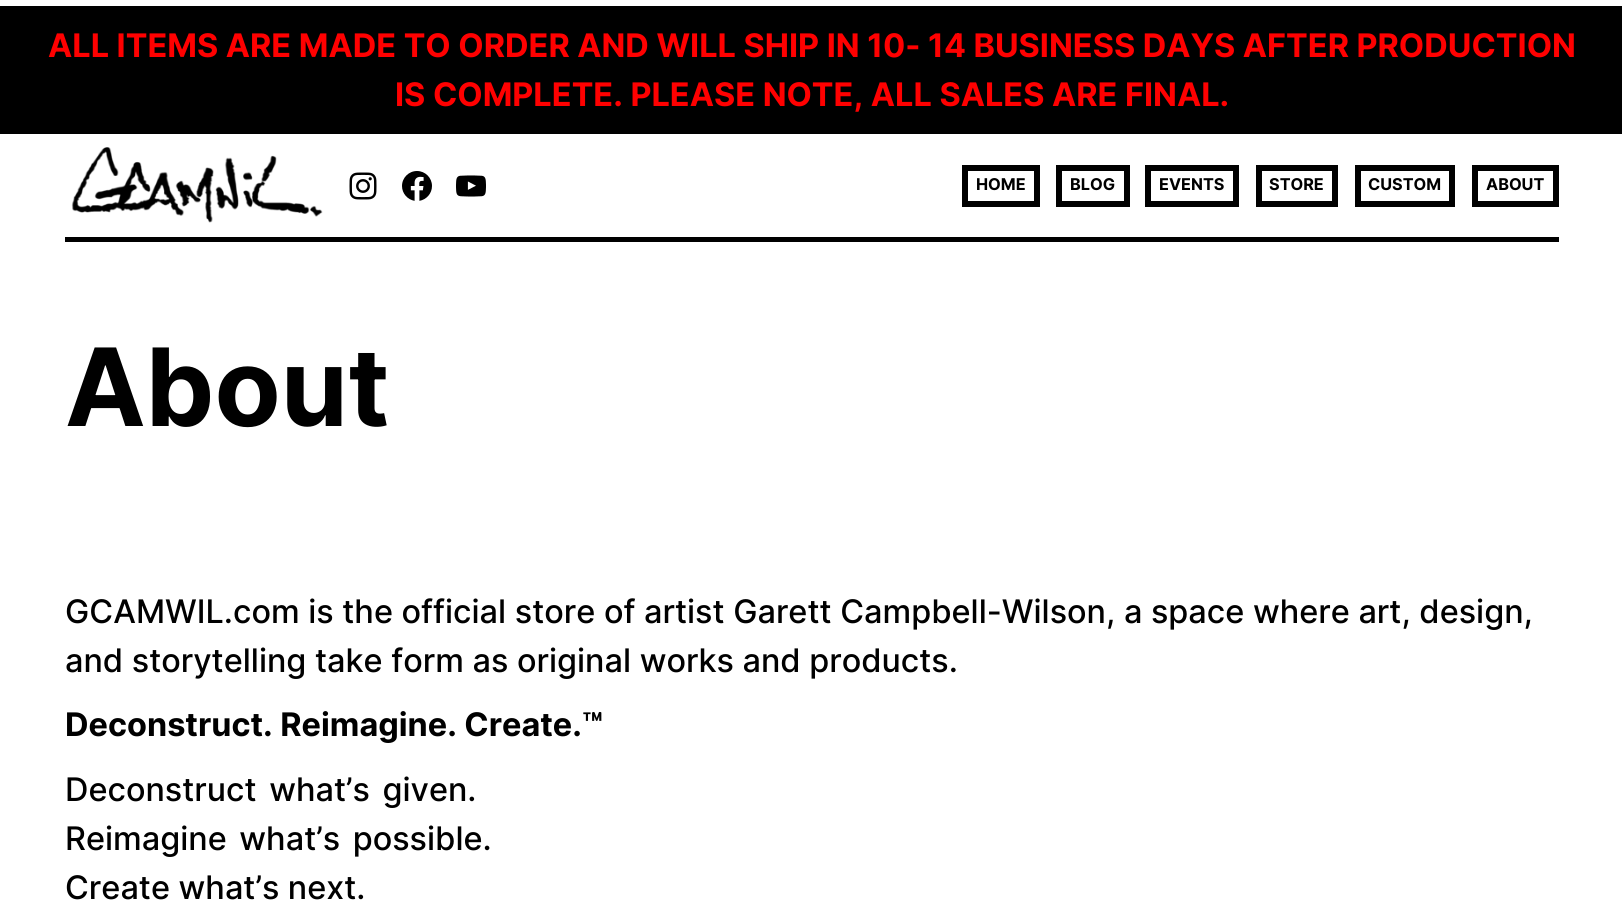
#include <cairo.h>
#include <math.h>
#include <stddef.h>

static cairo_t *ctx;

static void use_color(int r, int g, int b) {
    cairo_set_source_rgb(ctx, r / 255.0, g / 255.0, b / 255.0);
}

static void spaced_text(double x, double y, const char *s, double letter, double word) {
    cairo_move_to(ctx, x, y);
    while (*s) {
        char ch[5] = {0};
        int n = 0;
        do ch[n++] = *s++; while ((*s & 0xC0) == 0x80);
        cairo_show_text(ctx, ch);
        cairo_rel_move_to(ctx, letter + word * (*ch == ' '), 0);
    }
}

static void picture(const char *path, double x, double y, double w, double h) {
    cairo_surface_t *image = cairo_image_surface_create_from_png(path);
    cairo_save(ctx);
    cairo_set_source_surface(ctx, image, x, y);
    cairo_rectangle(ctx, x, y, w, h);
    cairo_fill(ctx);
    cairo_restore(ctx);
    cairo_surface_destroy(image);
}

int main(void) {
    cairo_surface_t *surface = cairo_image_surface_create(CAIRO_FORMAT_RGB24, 1622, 906);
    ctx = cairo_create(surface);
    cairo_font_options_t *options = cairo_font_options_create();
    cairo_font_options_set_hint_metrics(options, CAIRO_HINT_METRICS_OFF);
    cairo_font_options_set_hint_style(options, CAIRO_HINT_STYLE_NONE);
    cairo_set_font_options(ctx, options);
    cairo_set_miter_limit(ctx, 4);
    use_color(255, 255, 255);
    cairo_paint(ctx);
    use_color(0, 0, 0);
    cairo_rectangle(ctx, 0, 6, 1622, 128);
    cairo_fill(ctx);
    cairo_select_font_face(ctx, "Inter", CAIRO_FONT_SLANT_NORMAL, CAIRO_FONT_WEIGHT_BOLD);
    cairo_set_font_size(ctx, 32.45);
    use_color(255, 0, 0);
    cairo_move_to(ctx, 48, 57);
    cairo_show_text(ctx, "ALL ITEMS ARE MADE TO ORDER AND WILL SHIP IN 10- 14 BUSINESS DAYS AFTER PRODUCTION");
    cairo_move_to(ctx, 395, 106);
    cairo_show_text(ctx, "IS COMPLETE. PLEASE NOTE, ALL SALES ARE FINAL.");
    picture("img1.png", 71, 147, 252, 76);
    picture("img2.png", 349, 172, 28, 28);
    picture("img3.png", 402, 171, 30, 30);
    picture("img4.png", 456, 175, 30, 22);
    cairo_rectangle(ctx, 965, 168, 72, 36);
    use_color(0, 0, 0);
    cairo_set_line_width(ctx, 6);
    cairo_stroke(ctx);
    cairo_set_font_size(ctx, 16.25);
    cairo_move_to(ctx, 976, 190);
    cairo_show_text(ctx, "HOME");
    cairo_rectangle(ctx, 1059, 168, 68, 36);
    cairo_stroke(ctx);
    cairo_move_to(ctx, 1070, 190);
    cairo_show_text(ctx, "BLOG");
    cairo_rectangle(ctx, 1148, 168, 88, 36);
    cairo_stroke(ctx);
    cairo_move_to(ctx, 1159, 190);
    cairo_show_text(ctx, "EVENTS");
    cairo_rectangle(ctx, 1259, 168, 76, 36);
    cairo_stroke(ctx);
    cairo_move_to(ctx, 1269, 190);
    cairo_show_text(ctx, "STORE");
    cairo_rectangle(ctx, 1358, 168, 94, 36);
    cairo_stroke(ctx);
    cairo_move_to(ctx, 1368, 190);
    cairo_show_text(ctx, "CUSTOM");
    cairo_rectangle(ctx, 1475, 168, 81, 36);
    cairo_stroke(ctx);
    cairo_move_to(ctx, 1486, 190);
    cairo_show_text(ctx, "ABOUT");
    cairo_rectangle(ctx, 65, 237, 1494, 5);
    cairo_fill(ctx);
    cairo_set_font_size(ctx, 108);
    cairo_move_to(ctx, 65, 426);
    cairo_show_text(ctx, "About");
    cairo_select_font_face(ctx, "Inter Medium", CAIRO_FONT_SLANT_NORMAL, CAIRO_FONT_WEIGHT_NORMAL);
    cairo_set_font_size(ctx, 32.45);
    cairo_move_to(ctx, 65, 623);
    cairo_show_text(ctx, "GCAMWIL.com is the official store of artist Garett Campbell-Wilson, a space where art, design,");
    cairo_move_to(ctx, 65, 672);
    cairo_show_text(ctx, "and storytelling take form as original works and products.");
    cairo_select_font_face(ctx, "Inter", CAIRO_FONT_SLANT_NORMAL, CAIRO_FONT_WEIGHT_BOLD);
    cairo_move_to(ctx, 65, 736);
    cairo_show_text(ctx, "Deconstruct. Reimagine. Create.™");
    cairo_select_font_face(ctx, "Inter Medium", CAIRO_FONT_SLANT_NORMAL, CAIRO_FONT_WEIGHT_NORMAL);
    spaced_text(65, 801, "Deconstruct what’s given.", 0, 4);
    spaced_text(65, 850, "Reimagine what’s possible.", 0, 4);
    cairo_move_to(ctx, 65, 899);
    cairo_show_text(ctx, "Create what’s next.");
    cairo_surface_write_to_png(surface, "result.png");
    cairo_font_options_destroy(options);
    cairo_destroy(ctx);
    cairo_surface_destroy(surface);
    return 0;
}
